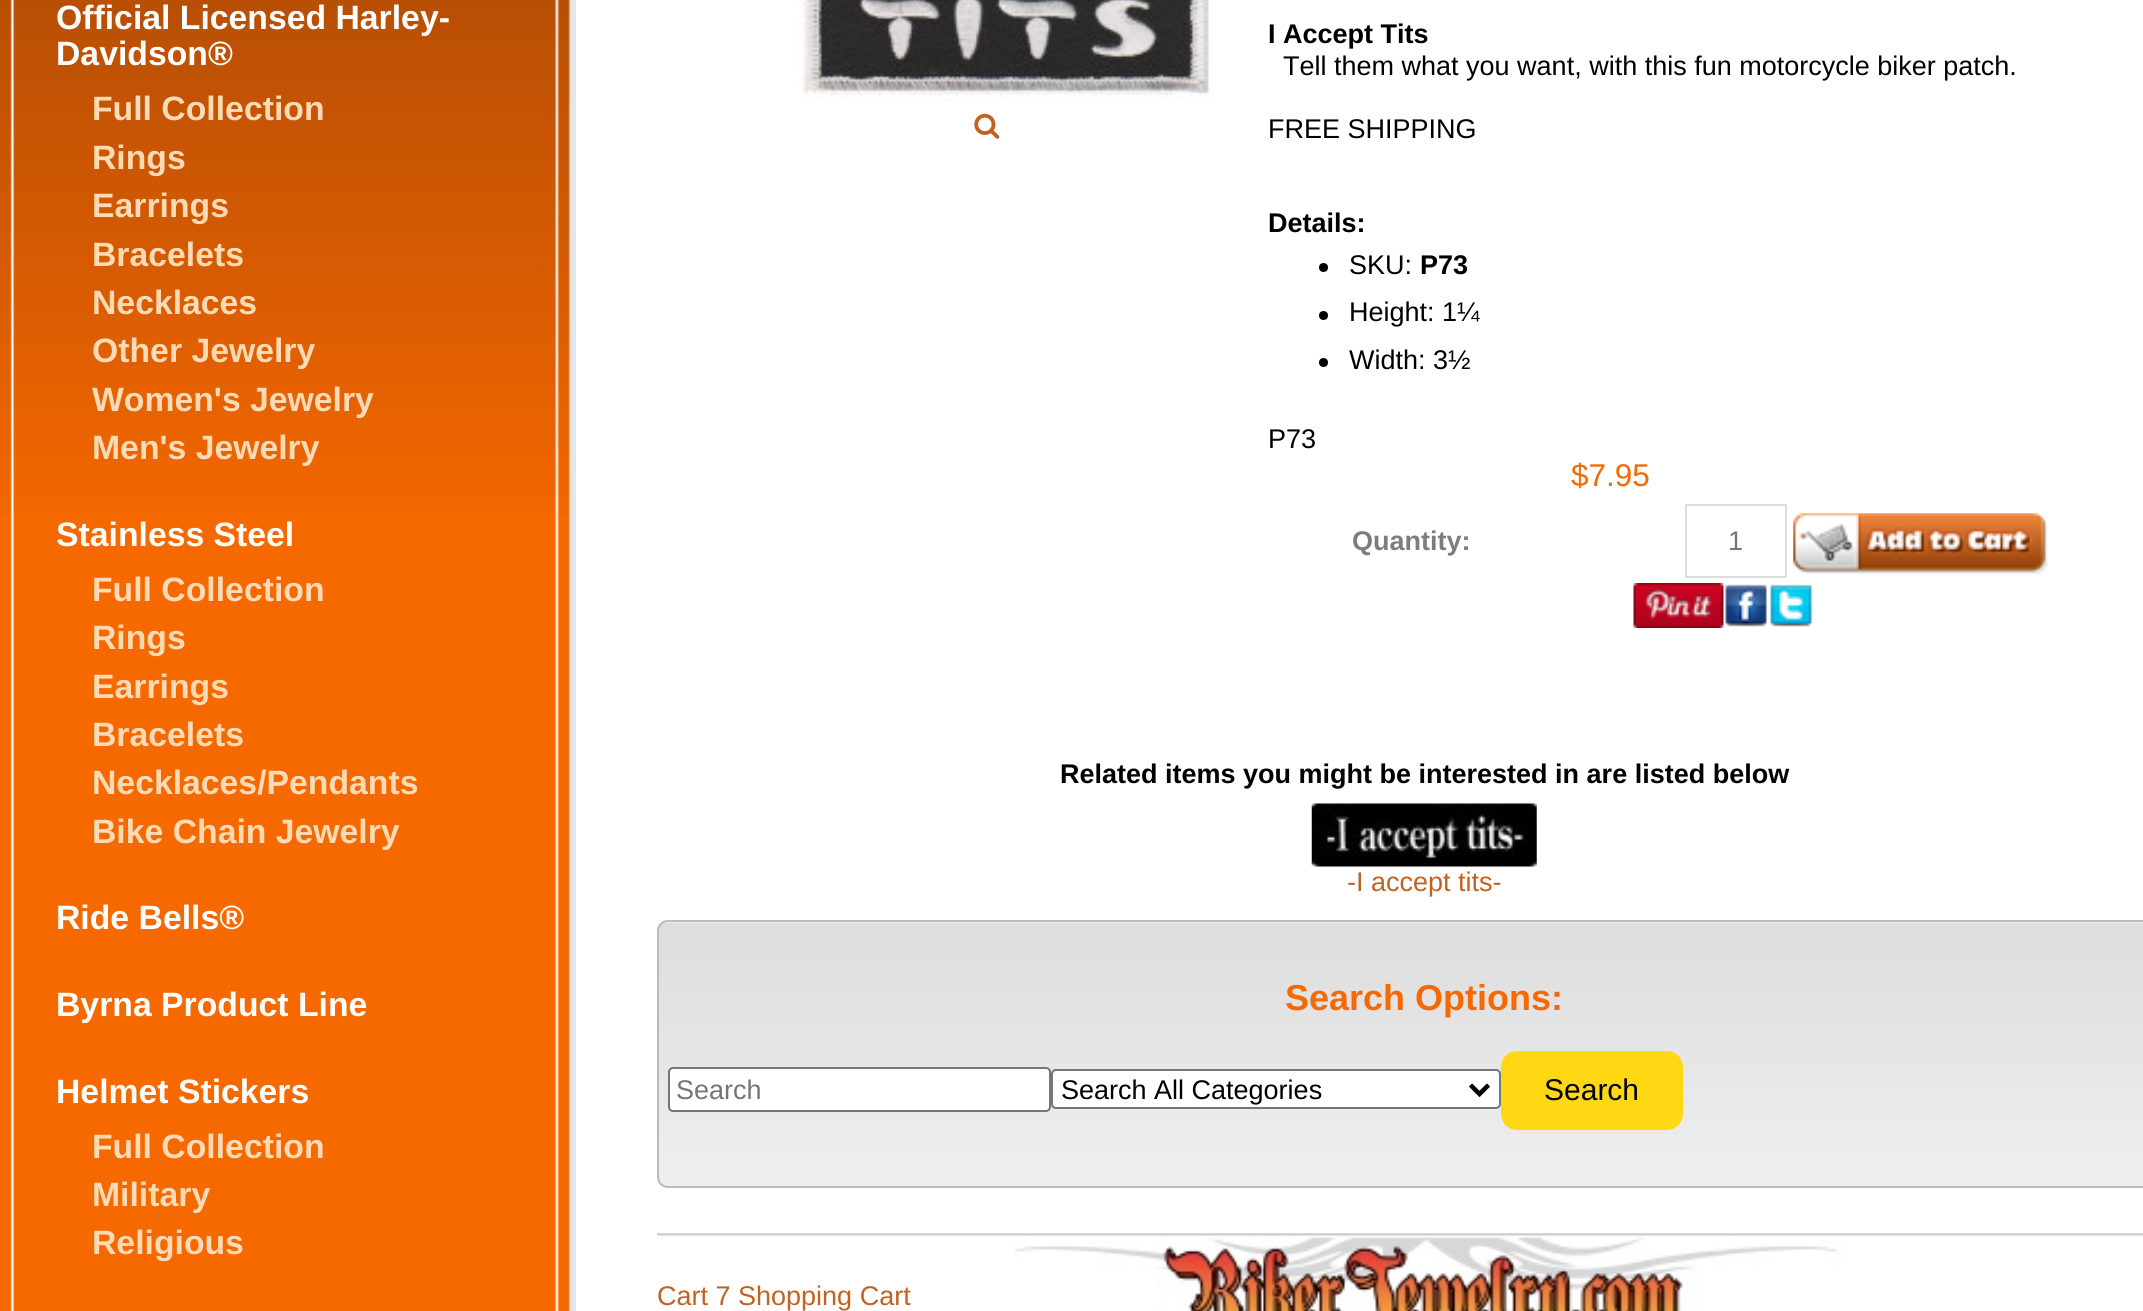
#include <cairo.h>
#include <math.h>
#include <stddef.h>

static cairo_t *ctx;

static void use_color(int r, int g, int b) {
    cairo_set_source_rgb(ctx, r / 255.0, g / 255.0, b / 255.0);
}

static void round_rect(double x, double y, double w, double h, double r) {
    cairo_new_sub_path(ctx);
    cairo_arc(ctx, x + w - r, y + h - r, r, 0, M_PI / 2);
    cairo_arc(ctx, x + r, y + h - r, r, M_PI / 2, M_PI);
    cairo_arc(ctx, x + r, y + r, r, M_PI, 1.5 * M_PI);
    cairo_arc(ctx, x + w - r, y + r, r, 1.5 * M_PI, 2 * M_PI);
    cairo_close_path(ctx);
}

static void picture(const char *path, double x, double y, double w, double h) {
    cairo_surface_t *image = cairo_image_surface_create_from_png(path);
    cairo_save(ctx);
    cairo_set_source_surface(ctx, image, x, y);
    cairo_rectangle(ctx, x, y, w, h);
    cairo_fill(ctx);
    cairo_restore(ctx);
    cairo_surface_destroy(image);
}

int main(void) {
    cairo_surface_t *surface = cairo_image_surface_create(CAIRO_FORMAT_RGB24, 2143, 1311);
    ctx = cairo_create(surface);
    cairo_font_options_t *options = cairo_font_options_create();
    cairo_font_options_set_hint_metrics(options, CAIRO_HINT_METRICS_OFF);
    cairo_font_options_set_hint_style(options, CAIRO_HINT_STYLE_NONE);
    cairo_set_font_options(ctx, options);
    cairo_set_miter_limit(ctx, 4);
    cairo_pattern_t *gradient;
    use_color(255, 255, 255);
    cairo_paint(ctx);
    picture("img1.png", 0, 0, 576, 1311);
    picture("img2.png", 0, 0, 570, 514);
    cairo_select_font_face(ctx, "Liberation Sans", CAIRO_FONT_SLANT_NORMAL, CAIRO_FONT_WEIGHT_BOLD);
    cairo_set_font_size(ctx, 33.75);
    use_color(255, 255, 255);
    cairo_move_to(ctx, 56, 29);
    cairo_show_text(ctx, "Official Licensed Harley-");
    cairo_move_to(ctx, 56, 65);
    cairo_show_text(ctx, "Davidson®");
    use_color(255, 219, 181);
    cairo_move_to(ctx, 92, 120);
    cairo_show_text(ctx, "Full Collection");
    cairo_move_to(ctx, 92, 169);
    cairo_show_text(ctx, "Rings");
    cairo_move_to(ctx, 92, 217);
    cairo_show_text(ctx, "Earrings");
    cairo_move_to(ctx, 92, 266);
    cairo_show_text(ctx, "Bracelets");
    cairo_move_to(ctx, 92, 314);
    cairo_show_text(ctx, "Necklaces");
    cairo_move_to(ctx, 92, 362);
    cairo_show_text(ctx, "Other Jewelry");
    cairo_move_to(ctx, 92, 411);
    cairo_show_text(ctx, "Women's Jewelry");
    cairo_move_to(ctx, 92, 459);
    cairo_show_text(ctx, "Men's Jewelry");
    use_color(255, 255, 255);
    cairo_move_to(ctx, 56, 546);
    cairo_show_text(ctx, "Stainless Steel");
    use_color(255, 219, 181);
    cairo_move_to(ctx, 92, 601);
    cairo_show_text(ctx, "Full Collection");
    cairo_move_to(ctx, 92, 649);
    cairo_show_text(ctx, "Rings");
    cairo_move_to(ctx, 92, 698);
    cairo_show_text(ctx, "Earrings");
    cairo_move_to(ctx, 92, 746);
    cairo_show_text(ctx, "Bracelets");
    cairo_move_to(ctx, 92, 794);
    cairo_show_text(ctx, "Necklaces/Pendants");
    cairo_move_to(ctx, 92, 843);
    cairo_show_text(ctx, "Bike Chain Jewelry");
    use_color(255, 255, 255);
    cairo_move_to(ctx, 56, 929);
    cairo_show_text(ctx, "Ride Bells®");
    cairo_move_to(ctx, 56, 1016);
    cairo_show_text(ctx, "Byrna Product Line");
    cairo_move_to(ctx, 56, 1103);
    cairo_show_text(ctx, "Helmet Stickers");
    use_color(255, 219, 181);
    cairo_move_to(ctx, 92, 1158);
    cairo_show_text(ctx, "Full Collection");
    cairo_move_to(ctx, 92, 1206);
    cairo_show_text(ctx, "Military");
    cairo_move_to(ctx, 92, 1254);
    cairo_show_text(ctx, "Religious");
    picture("img3.png", 799, 0, 414, 102);
    picture("img4.png", 974, 113, 26, 26);
    cairo_set_font_size(ctx, 27);
    use_color(0, 0, 0);
    cairo_move_to(ctx, 1268, 43);
    cairo_show_text(ctx, "I Accept Tits");
    cairo_select_font_face(ctx, "Liberation Sans", CAIRO_FONT_SLANT_NORMAL, CAIRO_FONT_WEIGHT_NORMAL);
    cairo_move_to(ctx, 1283, 75);
    cairo_show_text(ctx, "Tell them what you want, with this fun motorcycle biker patch.");
    cairo_move_to(ctx, 1268, 138);
    cairo_show_text(ctx, "FREE SHIPPING");
    cairo_select_font_face(ctx, "Liberation Sans", CAIRO_FONT_SLANT_NORMAL, CAIRO_FONT_WEIGHT_BOLD);
    cairo_move_to(ctx, 1268, 232);
    cairo_show_text(ctx, "Details:");
    cairo_new_path(ctx);
    cairo_arc(ctx, 1323.5, 267.5, 4.5, 0, 2 * M_PI);
    cairo_fill(ctx);
    cairo_select_font_face(ctx, "Liberation Sans", CAIRO_FONT_SLANT_NORMAL, CAIRO_FONT_WEIGHT_NORMAL);
    cairo_move_to(ctx, 1349, 274);
    cairo_show_text(ctx, "SKU:");
    cairo_select_font_face(ctx, "Liberation Sans", CAIRO_FONT_SLANT_NORMAL, CAIRO_FONT_WEIGHT_BOLD);
    cairo_move_to(ctx, 1420, 274);
    cairo_show_text(ctx, "P73");
    cairo_new_path(ctx);
    cairo_arc(ctx, 1323.5, 315.5, 4.5, 0, 2 * M_PI);
    cairo_fill(ctx);
    cairo_select_font_face(ctx, "Liberation Sans", CAIRO_FONT_SLANT_NORMAL, CAIRO_FONT_WEIGHT_NORMAL);
    cairo_move_to(ctx, 1349, 321);
    cairo_show_text(ctx, "Height: 1¼");
    cairo_new_path(ctx);
    cairo_arc(ctx, 1323.5, 362.5, 4.5, 0, 2 * M_PI);
    cairo_fill(ctx);
    cairo_move_to(ctx, 1349, 369);
    cairo_show_text(ctx, "Width: 3½");
    cairo_move_to(ctx, 1268, 448);
    cairo_show_text(ctx, "P73");
    cairo_set_font_size(ctx, 31.5);
    use_color(246, 105, 0);
    cairo_move_to(ctx, 1571, 486);
    cairo_show_text(ctx, "$7.95");
    cairo_select_font_face(ctx, "Liberation Sans", CAIRO_FONT_SLANT_NORMAL, CAIRO_FONT_WEIGHT_BOLD);
    cairo_set_font_size(ctx, 27);
    use_color(125, 125, 125);
    cairo_move_to(ctx, 1352, 550);
    cairo_show_text(ctx, "Quantity:");
    cairo_rectangle(ctx, 1686, 505, 100, 72);
    use_color(221, 221, 221);
    cairo_stroke(ctx);
    cairo_select_font_face(ctx, "Liberation Sans", CAIRO_FONT_SLANT_NORMAL, CAIRO_FONT_WEIGHT_NORMAL);
    use_color(117, 117, 117);
    cairo_move_to(ctx, 1728, 550);
    cairo_show_text(ctx, "1");
    picture("img5.png", 1793, 513, 255, 61);
    picture("img6.png", 1633, 583, 91, 45);
    picture("img7.png", 1725, 584, 42, 43);
    picture("img8.png", 1770, 584, 42, 43);
    cairo_select_font_face(ctx, "Liberation Sans", CAIRO_FONT_SLANT_NORMAL, CAIRO_FONT_WEIGHT_BOLD);
    use_color(0, 0, 0);
    cairo_move_to(ctx, 1060, 783);
    cairo_show_text(ctx, "Related items you might be interested in are listed below");
    picture("img9.png", 1311, 803, 226, 64);
    cairo_select_font_face(ctx, "Liberation Sans", CAIRO_FONT_SLANT_NORMAL, CAIRO_FONT_WEIGHT_NORMAL);
    use_color(193, 98, 35);
    cairo_move_to(ctx, 1347, 891);
    cairo_show_text(ctx, "-I accept tits-");
    cairo_save(ctx);
    round_rect(657, 920, 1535, 268, 11);
    cairo_clip(ctx);
    gradient = cairo_pattern_create_linear(1424, 923, 1424, 659);
    cairo_pattern_add_color_stop_rgba(gradient, 0, 0.937, 0.937, 0.937, 1);
    cairo_pattern_add_color_stop_rgba(gradient, 1, 0.867, 0.867, 0.867, 1);
    cairo_set_source(ctx, gradient);
    cairo_pattern_destroy(gradient);
    cairo_rectangle(ctx, 657, 920, 1486, 3);
    cairo_fill(ctx);
    gradient = cairo_pattern_create_linear(1424, 1186, 1424, 923);
    cairo_pattern_add_color_stop_rgba(gradient, 0, 0.937, 0.937, 0.937, 1);
    cairo_pattern_add_color_stop_rgba(gradient, 1, 0.867, 0.867, 0.867, 1);
    cairo_set_source(ctx, gradient);
    cairo_pattern_destroy(gradient);
    cairo_rectangle(ctx, 657, 923, 1486, 263);
    cairo_fill(ctx);
    cairo_restore(ctx);
    round_rect(658, 921, 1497, 266, 10);
    use_color(187, 187, 187);
    cairo_stroke(ctx);
    cairo_select_font_face(ctx, "Liberation Sans", CAIRO_FONT_SLANT_NORMAL, CAIRO_FONT_WEIGHT_BOLD);
    cairo_set_font_size(ctx, 36);
    use_color(246, 105, 0);
    cairo_move_to(ctx, 1285, 1010);
    cairo_show_text(ctx, "Search Options:");
    use_color(255, 255, 255);
    round_rect(669, 1068, 381, 43, 4);
    cairo_fill_preserve(ctx);
    use_color(118, 118, 118);
    cairo_stroke(ctx);
    cairo_select_font_face(ctx, "Liberation Sans", CAIRO_FONT_SLANT_NORMAL, CAIRO_FONT_WEIGHT_NORMAL);
    cairo_set_font_size(ctx, 27);
    use_color(117, 117, 117);
    cairo_move_to(ctx, 676, 1099);
    cairo_show_text(ctx, "Search");
    use_color(255, 255, 255);
    round_rect(1052, 1070, 448, 38, 4);
    cairo_fill_preserve(ctx);
    use_color(118, 118, 118);
    cairo_stroke(ctx);
    cairo_new_path(ctx);
    cairo_move_to(ctx, 1470.5, 1085);
    cairo_line_to(ctx, 1479.5, 1094);
    cairo_line_to(ctx, 1488.5, 1085);
    use_color(0, 0, 0);
    cairo_set_line_width(ctx, 4.5);
    cairo_stroke(ctx);
    cairo_move_to(ctx, 1061, 1099);
    cairo_show_text(ctx, "Search All Categories");
    use_color(255, 216, 20);
    round_rect(1501, 1051, 182, 79, 16);
    cairo_fill(ctx);
    cairo_set_font_size(ctx, 30);
    use_color(0, 0, 0);
    cairo_move_to(ctx, 1544, 1100);
    cairo_show_text(ctx, "Search");
    picture("img10.png", 657, 1233, 1486, 78);
    cairo_set_font_size(ctx, 27);
    use_color(193, 98, 35);
    cairo_move_to(ctx, 657, 1305);
    cairo_show_text(ctx, "Cart 7 Shopping Cart");
    cairo_surface_write_to_png(surface, "result.png");
    cairo_font_options_destroy(options);
    cairo_destroy(ctx);
    cairo_surface_destroy(surface);
    return 0;
}
